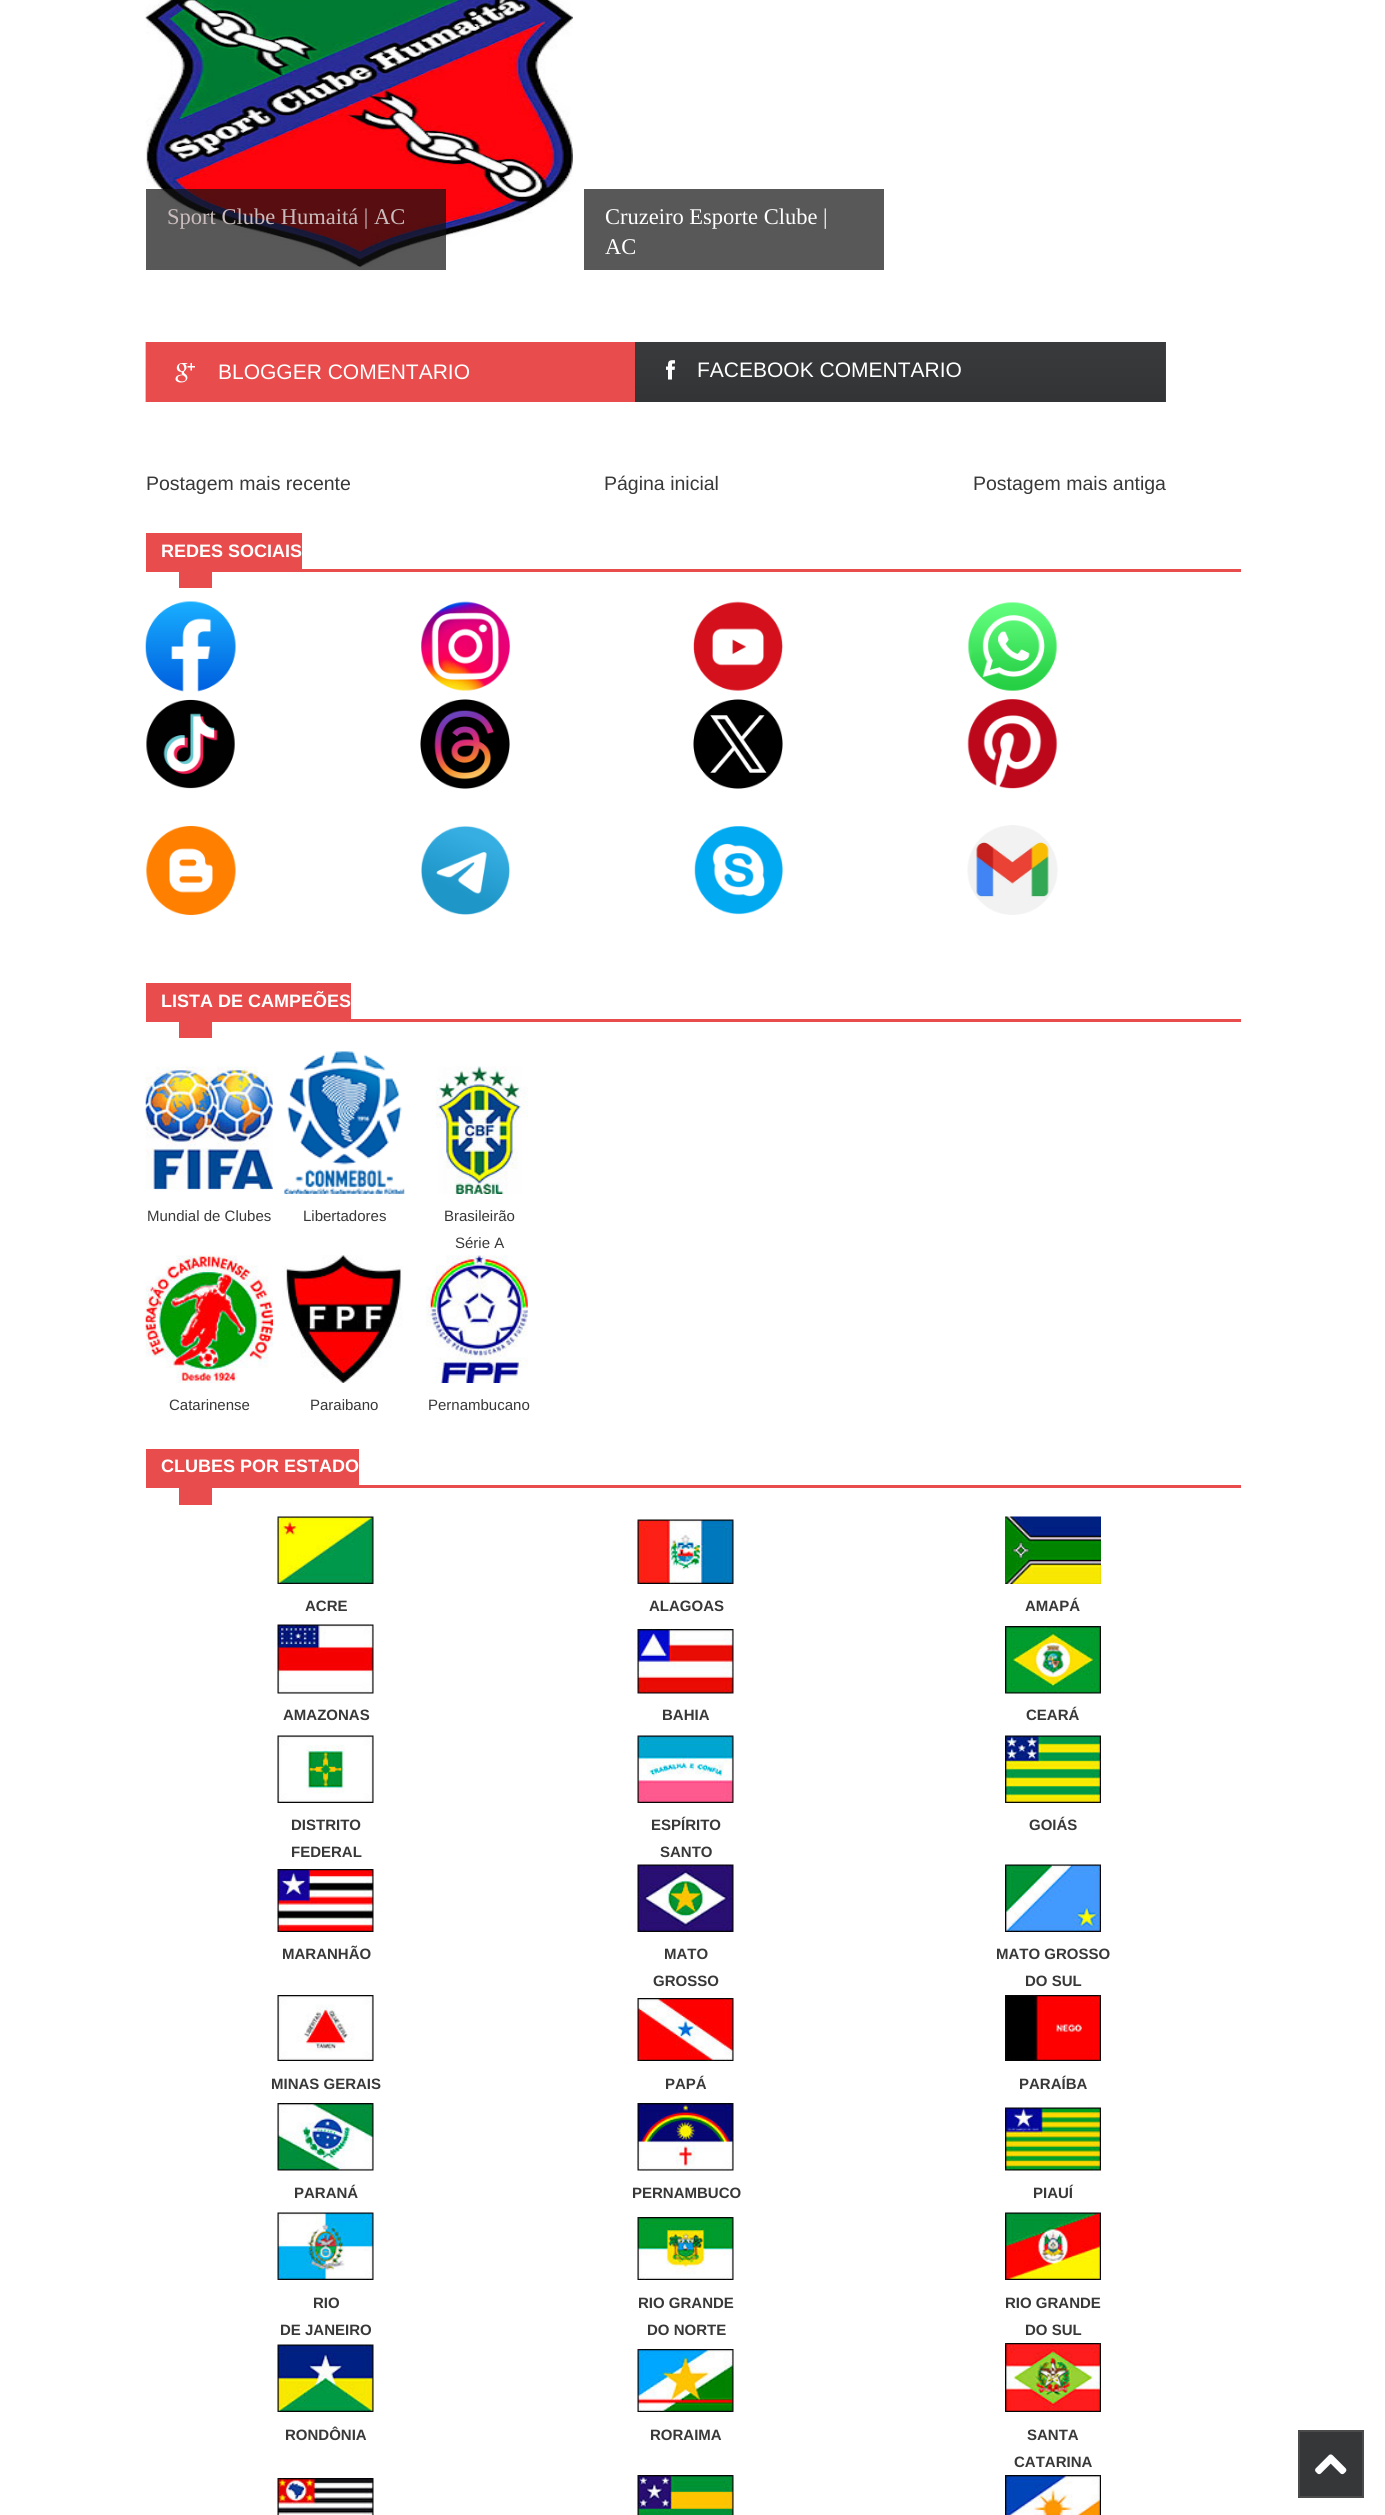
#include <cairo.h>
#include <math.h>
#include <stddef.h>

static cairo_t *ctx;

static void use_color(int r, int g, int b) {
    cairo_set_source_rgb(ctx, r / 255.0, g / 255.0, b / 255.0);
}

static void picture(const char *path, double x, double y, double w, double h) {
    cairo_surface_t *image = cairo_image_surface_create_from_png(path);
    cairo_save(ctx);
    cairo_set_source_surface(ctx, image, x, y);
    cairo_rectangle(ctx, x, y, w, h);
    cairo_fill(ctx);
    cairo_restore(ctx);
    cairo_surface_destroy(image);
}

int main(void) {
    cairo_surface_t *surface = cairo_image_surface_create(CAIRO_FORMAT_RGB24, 1385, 2515);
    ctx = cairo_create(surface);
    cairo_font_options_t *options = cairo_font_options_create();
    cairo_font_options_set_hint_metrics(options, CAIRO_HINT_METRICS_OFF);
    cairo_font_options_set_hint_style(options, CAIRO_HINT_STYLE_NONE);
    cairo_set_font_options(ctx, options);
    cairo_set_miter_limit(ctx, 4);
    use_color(255, 255, 255);
    cairo_paint(ctx);
    picture("img1.png", 145, 0, 428, 267);
    cairo_set_source_rgba(ctx, 0.067, 0.067, 0.067, 0.7);
    cairo_rectangle(ctx, 146, 189, 300, 81);
    cairo_fill(ctx);
    cairo_select_font_face(ctx, "Liberation Serif", CAIRO_FONT_SLANT_NORMAL, CAIRO_FONT_WEIGHT_NORMAL);
    cairo_set_font_size(ctx, 22.5);
    use_color(202, 188, 189);
    cairo_move_to(ctx, 167, 224);
    cairo_show_text(ctx, "Sport Clube Humaitá | AC");
    use_color(88, 88, 88);
    cairo_rectangle(ctx, 584, 189, 300, 81);
    cairo_fill(ctx);
    use_color(255, 255, 255);
    cairo_move_to(ctx, 605, 224);
    cairo_show_text(ctx, "Cruzeiro Esporte Clube |");
    cairo_move_to(ctx, 605, 254);
    cairo_show_text(ctx, "AC");
    use_color(68, 68, 68);
    cairo_rectangle(ctx, 1165, 342, 1, 60);
    cairo_fill(ctx);
    picture("img2.png", 145, 342, 1021, 60);
    use_color(232, 76, 76);
    cairo_rectangle(ctx, 146, 342, 489, 60);
    cairo_fill(ctx);
    picture("img3.png", 175, 363, 20, 20);
    cairo_select_font_face(ctx, "Liberation Sans", CAIRO_FONT_SLANT_NORMAL, CAIRO_FONT_WEIGHT_NORMAL);
    cairo_set_font_size(ctx, 21);
    use_color(255, 255, 255);
    cairo_move_to(ctx, 218, 379);
    cairo_show_text(ctx, "BLOGGER COMENTARIO");
    picture("img4.png", 666, 360, 9, 20);
    cairo_move_to(ctx, 697, 377);
    cairo_show_text(ctx, "FACEBOOK COMENTARIO");
    cairo_set_font_size(ctx, 19.5);
    use_color(56, 56, 56);
    cairo_move_to(ctx, 146, 490);
    cairo_show_text(ctx, "Postagem mais recente");
    cairo_move_to(ctx, 604, 490);
    cairo_show_text(ctx, "Página inicial");
    cairo_move_to(ctx, 973, 490);
    cairo_show_text(ctx, "Postagem mais antiga");
    use_color(232, 76, 76);
    cairo_rectangle(ctx, 302, 569, 939, 3);
    cairo_fill(ctx);
    cairo_rectangle(ctx, 146, 533, 156, 39);
    cairo_fill(ctx);
    cairo_select_font_face(ctx, "Liberation Sans", CAIRO_FONT_SLANT_NORMAL, CAIRO_FONT_WEIGHT_BOLD);
    cairo_set_font_size(ctx, 18);
    use_color(255, 255, 255);
    cairo_move_to(ctx, 161, 557);
    cairo_show_text(ctx, "REDES SOCIAIS");
    use_color(232, 76, 76);
    cairo_rectangle(ctx, 179, 572, 33, 16);
    cairo_fill(ctx);
    picture("img5.png", 145, 601, 91, 91);
    picture("img6.png", 421, 601, 89, 90);
    picture("img7.png", 693, 601, 90, 90);
    picture("img8.png", 968, 602, 89, 89);
    picture("img9.png", 146, 699, 89, 90);
    picture("img10.png", 420, 699, 90, 90);
    picture("img11.png", 693, 699, 90, 90);
    picture("img12.png", 967, 699, 91, 90);
    picture("img13.png", 146, 825, 90, 90);
    picture("img14.png", 421, 826, 89, 89);
    picture("img15.png", 694, 826, 89, 89);
    picture("img16.png", 967, 825, 91, 90);
    cairo_rectangle(ctx, 351, 1019, 890, 3);
    cairo_fill(ctx);
    cairo_rectangle(ctx, 146, 983, 205, 39);
    cairo_fill(ctx);
    use_color(255, 255, 255);
    cairo_move_to(ctx, 161, 1007);
    cairo_show_text(ctx, "LISTA DE CAMPEÕES");
    use_color(232, 76, 76);
    cairo_rectangle(ctx, 179, 1022, 33, 16);
    cairo_fill(ctx);
    picture("img17.png", 145, 1066, 128, 124);
    picture("img18.png", 284, 1051, 121, 143);
    picture("img19.png", 436, 1066, 92, 128);
    cairo_select_font_face(ctx, "Liberation Sans", CAIRO_FONT_SLANT_NORMAL, CAIRO_FONT_WEIGHT_NORMAL);
    cairo_set_font_size(ctx, 15);
    use_color(56, 56, 56);
    cairo_move_to(ctx, 147, 1221);
    cairo_show_text(ctx, "Mundial de Clubes");
    cairo_move_to(ctx, 303, 1221);
    cairo_show_text(ctx, "Libertadores");
    cairo_move_to(ctx, 444, 1221);
    cairo_show_text(ctx, "Brasileirão");
    cairo_move_to(ctx, 455, 1248);
    cairo_show_text(ctx, "Série A");
    picture("img20.png", 145, 1255, 128, 128);
    picture("img21.png", 282, 1255, 121, 128);
    picture("img22.png", 426, 1255, 102, 128);
    cairo_move_to(ctx, 169, 1410);
    cairo_show_text(ctx, "Catarinense");
    cairo_move_to(ctx, 310, 1410);
    cairo_show_text(ctx, "Paraibano");
    cairo_move_to(ctx, 428, 1410);
    cairo_show_text(ctx, "Pernambucano");
    use_color(232, 76, 76);
    cairo_rectangle(ctx, 359, 1485, 882, 3);
    cairo_fill(ctx);
    cairo_rectangle(ctx, 146, 1449, 213, 39);
    cairo_fill(ctx);
    cairo_select_font_face(ctx, "Liberation Sans", CAIRO_FONT_SLANT_NORMAL, CAIRO_FONT_WEIGHT_BOLD);
    cairo_set_font_size(ctx, 18);
    use_color(255, 255, 255);
    cairo_move_to(ctx, 161, 1472);
    cairo_show_text(ctx, "CLUBES POR ESTADO");
    use_color(232, 76, 76);
    cairo_rectangle(ctx, 179, 1488, 33, 17);
    cairo_fill(ctx);
    picture("img23.png", 277, 1516, 97, 68);
    picture("img24.png", 637, 1519, 97, 65);
    picture("img25.png", 1005, 1516, 96, 68);
    cairo_set_font_size(ctx, 15);
    use_color(56, 56, 56);
    cairo_move_to(ctx, 305, 1611);
    cairo_show_text(ctx, "ACRE");
    cairo_move_to(ctx, 649, 1611);
    cairo_show_text(ctx, "ALAGOAS");
    cairo_move_to(ctx, 1025, 1611);
    cairo_show_text(ctx, "AMAPÁ");
    picture("img26.png", 277, 1624, 97, 70);
    picture("img27.png", 637, 1629, 97, 65);
    picture("img28.png", 1005, 1626, 96, 68);
    cairo_move_to(ctx, 283, 1720);
    cairo_show_text(ctx, "AMAZONAS");
    cairo_move_to(ctx, 662, 1720);
    cairo_show_text(ctx, "BAHIA");
    cairo_move_to(ctx, 1026, 1720);
    cairo_show_text(ctx, "CEARÁ");
    picture("img29.png", 277, 1735, 97, 68);
    picture("img30.png", 637, 1735, 97, 68);
    picture("img31.png", 1005, 1735, 96, 68);
    cairo_move_to(ctx, 291, 1830);
    cairo_show_text(ctx, "DISTRITO");
    cairo_move_to(ctx, 291, 1857);
    cairo_show_text(ctx, "FEDERAL");
    cairo_move_to(ctx, 651, 1830);
    cairo_show_text(ctx, "ESPÍRITO");
    cairo_move_to(ctx, 660, 1857);
    cairo_show_text(ctx, "SANTO");
    cairo_move_to(ctx, 1029, 1830);
    cairo_show_text(ctx, "GOIÁS");
    picture("img32.png", 277, 1869, 97, 63);
    picture("img33.png", 637, 1864, 97, 68);
    picture("img34.png", 1005, 1864, 96, 68);
    cairo_move_to(ctx, 282, 1959);
    cairo_show_text(ctx, "MARANHÃO");
    cairo_move_to(ctx, 664, 1959);
    cairo_show_text(ctx, "MATO");
    cairo_move_to(ctx, 653, 1986);
    cairo_show_text(ctx, "GROSSO");
    cairo_move_to(ctx, 996, 1959);
    cairo_show_text(ctx, "MATO GROSSO");
    cairo_move_to(ctx, 1025, 1986);
    cairo_show_text(ctx, "DO SUL");
    picture("img35.png", 277, 1995, 97, 66);
    picture("img36.png", 637, 1998, 97, 63);
    picture("img37.png", 1005, 1995, 96, 66);
    cairo_move_to(ctx, 271, 2089);
    cairo_show_text(ctx, "MINAS GERAIS");
    cairo_move_to(ctx, 665, 2089);
    cairo_show_text(ctx, "PAPÁ");
    cairo_move_to(ctx, 1019, 2089);
    cairo_show_text(ctx, "PARAÍBA");
    picture("img38.png", 277, 2103, 97, 68);
    picture("img39.png", 637, 2103, 97, 68);
    picture("img40.png", 1005, 2107, 96, 64);
    cairo_move_to(ctx, 294, 2198);
    cairo_show_text(ctx, "PARANÁ");
    cairo_move_to(ctx, 632, 2198);
    cairo_show_text(ctx, "PERNAMBUCO");
    cairo_move_to(ctx, 1033, 2198);
    cairo_show_text(ctx, "PIAUÍ");
    picture("img41.png", 277, 2212, 97, 68);
    picture("img42.png", 637, 2217, 97, 63);
    picture("img43.png", 1005, 2212, 96, 68);
    cairo_move_to(ctx, 313, 2308);
    cairo_show_text(ctx, "RIO");
    cairo_move_to(ctx, 280, 2335);
    cairo_show_text(ctx, "DE JANEIRO");
    cairo_move_to(ctx, 638, 2308);
    cairo_show_text(ctx, "RIO GRANDE");
    cairo_move_to(ctx, 647, 2335);
    cairo_show_text(ctx, "DO NORTE");
    cairo_move_to(ctx, 1005, 2308);
    cairo_show_text(ctx, "RIO GRANDE");
    cairo_move_to(ctx, 1025, 2335);
    cairo_show_text(ctx, "DO SUL");
    picture("img44.png", 277, 2344, 97, 68);
    picture("img45.png", 637, 2349, 97, 63);
    picture("img46.png", 1005, 2343, 96, 69);
    cairo_move_to(ctx, 285, 2440);
    cairo_show_text(ctx, "RONDÔNIA");
    cairo_move_to(ctx, 650, 2440);
    cairo_show_text(ctx, "RORAIMA");
    cairo_move_to(ctx, 1027, 2440);
    cairo_show_text(ctx, "SANTA");
    cairo_move_to(ctx, 1014, 2467);
    cairo_show_text(ctx, "CATARINA");
    picture("img47.png", 277, 2478, 97, 37);
    picture("img48.png", 637, 2475, 97, 40);
    picture("img49.png", 1005, 2475, 96, 40);
    use_color(53, 55, 56);
    cairo_rectangle(ctx, 1299, 2431, 64, 66);
    cairo_fill_preserve(ctx);
    use_color(75, 75, 75);
    cairo_stroke(ctx);
    picture("img50.png", 1315, 2454, 32, 21);
    cairo_surface_write_to_png(surface, "result.png");
    cairo_font_options_destroy(options);
    cairo_destroy(ctx);
    cairo_surface_destroy(surface);
    return 0;
}
